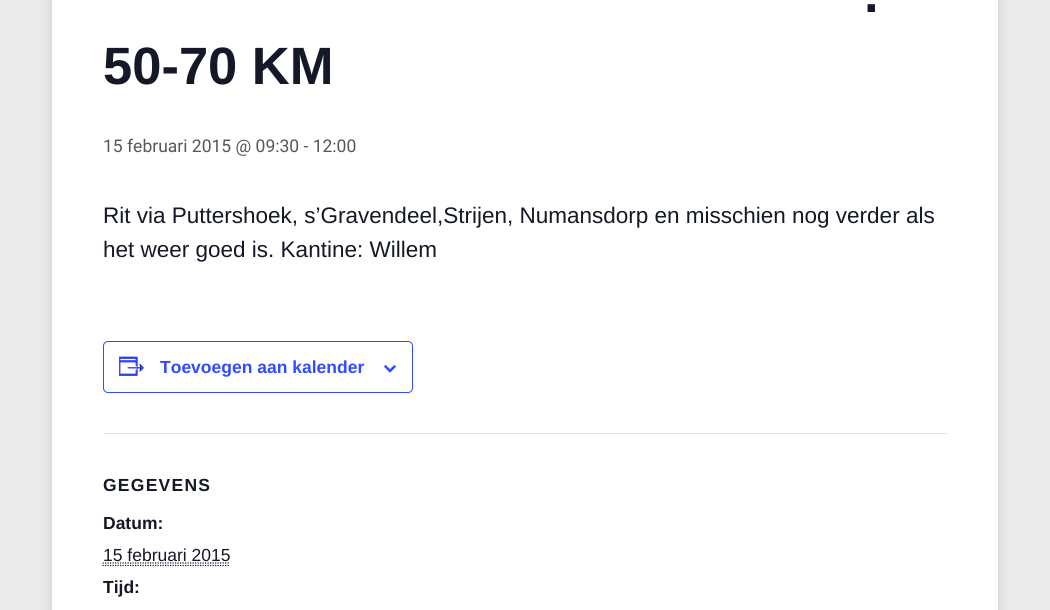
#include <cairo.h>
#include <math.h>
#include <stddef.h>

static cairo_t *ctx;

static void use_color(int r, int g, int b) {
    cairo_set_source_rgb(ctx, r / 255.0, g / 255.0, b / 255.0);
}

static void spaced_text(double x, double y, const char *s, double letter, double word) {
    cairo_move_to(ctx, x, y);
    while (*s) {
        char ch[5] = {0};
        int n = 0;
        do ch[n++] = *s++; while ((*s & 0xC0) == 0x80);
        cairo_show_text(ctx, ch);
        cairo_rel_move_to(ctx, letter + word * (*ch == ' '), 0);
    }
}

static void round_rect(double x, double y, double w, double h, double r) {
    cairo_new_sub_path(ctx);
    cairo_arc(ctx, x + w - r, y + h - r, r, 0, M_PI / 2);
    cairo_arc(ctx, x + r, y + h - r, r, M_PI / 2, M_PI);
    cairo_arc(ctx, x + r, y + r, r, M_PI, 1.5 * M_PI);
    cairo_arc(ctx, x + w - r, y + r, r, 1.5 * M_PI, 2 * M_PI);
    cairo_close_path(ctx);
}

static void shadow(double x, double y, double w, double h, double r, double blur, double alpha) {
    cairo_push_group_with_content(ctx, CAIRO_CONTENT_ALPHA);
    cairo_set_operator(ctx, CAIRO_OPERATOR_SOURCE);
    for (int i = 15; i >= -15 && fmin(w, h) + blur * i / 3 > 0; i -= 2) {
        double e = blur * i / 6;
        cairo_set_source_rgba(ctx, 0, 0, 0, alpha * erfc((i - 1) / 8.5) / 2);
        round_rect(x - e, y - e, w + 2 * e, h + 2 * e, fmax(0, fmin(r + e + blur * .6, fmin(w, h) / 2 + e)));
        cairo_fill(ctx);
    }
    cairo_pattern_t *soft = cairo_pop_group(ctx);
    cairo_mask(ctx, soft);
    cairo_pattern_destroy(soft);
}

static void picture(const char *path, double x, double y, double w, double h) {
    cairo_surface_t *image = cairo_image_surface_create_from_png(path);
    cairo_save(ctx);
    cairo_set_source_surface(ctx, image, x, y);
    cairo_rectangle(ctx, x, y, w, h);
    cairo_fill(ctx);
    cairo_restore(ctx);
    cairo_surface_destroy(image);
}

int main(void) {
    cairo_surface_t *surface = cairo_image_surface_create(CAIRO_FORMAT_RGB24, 1050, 610);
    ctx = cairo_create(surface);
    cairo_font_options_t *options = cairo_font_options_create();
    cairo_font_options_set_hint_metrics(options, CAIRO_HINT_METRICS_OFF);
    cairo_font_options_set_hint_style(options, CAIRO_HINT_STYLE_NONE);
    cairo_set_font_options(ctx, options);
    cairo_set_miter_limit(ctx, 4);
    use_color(235, 235, 235);
    cairo_paint(ctx);
    use_color(0, 0, 0);
    shadow(51, -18, 948, 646, 0, 6, 0.1);
    use_color(255, 255, 255);
    cairo_rectangle(ctx, 51.5, -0.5, 947, 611);
    cairo_fill_preserve(ctx);
    use_color(218, 218, 218);
    cairo_set_line_width(ctx, 1);
    cairo_stroke(ctx);
    cairo_select_font_face(ctx, "Liberation Sans", CAIRO_FONT_SLANT_NORMAL, CAIRO_FONT_WEIGHT_BOLD);
    cairo_set_font_size(ctx, 52.5);
    use_color(20, 24, 39);
    cairo_move_to(ctx, 864, 12);
    cairo_show_text(ctx, ".");
    cairo_move_to(ctx, 103, 84);
    cairo_show_text(ctx, "50-70 KM");
    cairo_select_font_face(ctx, "Roboto", CAIRO_FONT_SLANT_NORMAL, CAIRO_FONT_WEIGHT_NORMAL);
    cairo_set_font_size(ctx, 17.5);
    use_color(85, 87, 88);
    cairo_move_to(ctx, 103, 152);
    cairo_show_text(ctx, "15 februari 2015 @ 09:30 - 12:00");
    cairo_select_font_face(ctx, "Liberation Sans", CAIRO_FONT_SLANT_NORMAL, CAIRO_FONT_WEIGHT_NORMAL);
    cairo_set_font_size(ctx, 22.5);
    use_color(20, 24, 39);
    cairo_move_to(ctx, 103, 223);
    cairo_show_text(ctx, "Rit via Puttershoek, s’Gravendeel,Strijen, Numansdorp en misschien nog verder als");
    cairo_move_to(ctx, 103, 257);
    cairo_show_text(ctx, "het weer goed is. Kantine: Willem");
    round_rect(103.5, 341.5, 309, 51, 4.5);
    use_color(51, 74, 255);
    cairo_stroke(ctx);
    picture("img1.png", 119, 356, 25, 20);
    cairo_select_font_face(ctx, "Liberation Sans", CAIRO_FONT_SLANT_NORMAL, CAIRO_FONT_WEIGHT_BOLD);
    cairo_set_font_size(ctx, 17.5);
    cairo_move_to(ctx, 160, 373);
    cairo_show_text(ctx, "Toevoegen aan kalender");
    picture("img2.png", 384, 365, 12, 8);
    use_color(228, 228, 228);
    cairo_rectangle(ctx, 103, 433, 845, 1);
    cairo_fill(ctx);
    use_color(20, 24, 39);
    spaced_text(103, 491, "GEGEVENS", 1.25, 0);
    cairo_move_to(ctx, 103, 529);
    cairo_show_text(ctx, "Datum:");
    cairo_select_font_face(ctx, "Liberation Sans", CAIRO_FONT_SLANT_NORMAL, CAIRO_FONT_WEIGHT_NORMAL);
    cairo_move_to(ctx, 103, 561);
    cairo_show_text(ctx, "15 februari 2015");
    cairo_new_path(ctx);
    cairo_move_to(ctx, 102.5, 565.5);
    cairo_line_to(ctx, 230, 565.5);
    cairo_set_line_width(ctx, 1.2);
    cairo_set_dash(ctx, (double[]){1.25, 1.25}, 2, 0);
    cairo_stroke(ctx);
    cairo_new_path(ctx);
    cairo_move_to(ctx, 102.5, 563);
    cairo_line_to(ctx, 230, 563);
    cairo_stroke(ctx);
    cairo_select_font_face(ctx, "Liberation Sans", CAIRO_FONT_SLANT_NORMAL, CAIRO_FONT_WEIGHT_BOLD);
    cairo_move_to(ctx, 103, 593);
    cairo_show_text(ctx, "Tijd:");
    cairo_surface_write_to_png(surface, "result.png");
    cairo_font_options_destroy(options);
    cairo_destroy(ctx);
    cairo_surface_destroy(surface);
    return 0;
}
